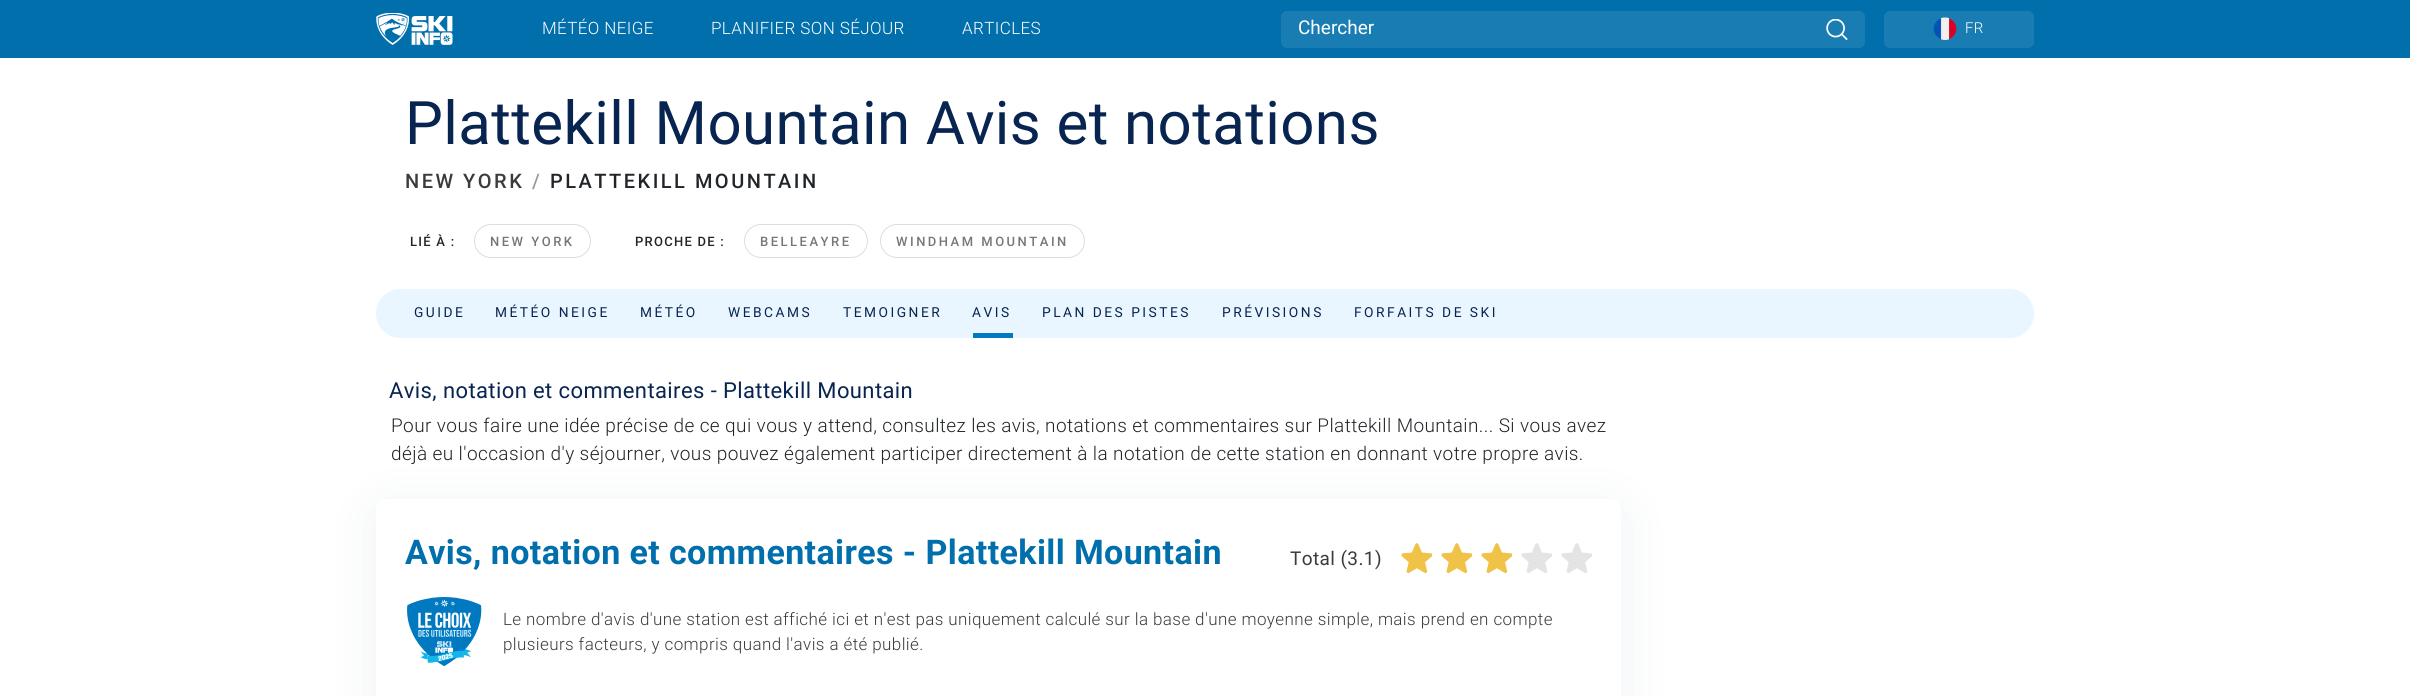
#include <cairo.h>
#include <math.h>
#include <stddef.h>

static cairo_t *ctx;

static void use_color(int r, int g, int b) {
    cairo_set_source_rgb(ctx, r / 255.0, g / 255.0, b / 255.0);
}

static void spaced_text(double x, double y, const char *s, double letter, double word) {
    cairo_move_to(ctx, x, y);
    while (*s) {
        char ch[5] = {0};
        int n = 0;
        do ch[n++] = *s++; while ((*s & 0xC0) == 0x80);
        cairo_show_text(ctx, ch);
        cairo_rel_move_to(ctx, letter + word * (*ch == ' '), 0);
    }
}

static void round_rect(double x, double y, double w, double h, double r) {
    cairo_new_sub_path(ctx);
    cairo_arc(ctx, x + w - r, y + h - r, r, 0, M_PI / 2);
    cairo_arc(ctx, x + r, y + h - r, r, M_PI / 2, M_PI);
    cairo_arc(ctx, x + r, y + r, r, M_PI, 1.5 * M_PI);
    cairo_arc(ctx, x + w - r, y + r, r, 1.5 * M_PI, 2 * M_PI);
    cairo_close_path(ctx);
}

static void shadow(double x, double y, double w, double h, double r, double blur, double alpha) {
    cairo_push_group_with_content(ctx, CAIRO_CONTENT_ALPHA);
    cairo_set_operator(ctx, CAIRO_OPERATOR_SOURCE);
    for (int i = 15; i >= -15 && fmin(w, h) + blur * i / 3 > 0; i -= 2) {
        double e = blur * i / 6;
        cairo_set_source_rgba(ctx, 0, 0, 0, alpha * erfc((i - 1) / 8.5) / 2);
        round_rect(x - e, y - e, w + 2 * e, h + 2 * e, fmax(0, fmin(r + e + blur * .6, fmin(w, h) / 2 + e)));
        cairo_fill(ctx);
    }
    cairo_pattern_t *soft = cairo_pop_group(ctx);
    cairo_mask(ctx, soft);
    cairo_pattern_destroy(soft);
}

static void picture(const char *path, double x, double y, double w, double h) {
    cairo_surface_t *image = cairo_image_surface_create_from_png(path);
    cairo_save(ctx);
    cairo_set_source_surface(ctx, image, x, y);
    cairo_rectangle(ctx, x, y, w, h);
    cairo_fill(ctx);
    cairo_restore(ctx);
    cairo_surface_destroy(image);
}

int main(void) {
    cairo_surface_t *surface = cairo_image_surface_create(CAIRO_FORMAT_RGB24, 2410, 696);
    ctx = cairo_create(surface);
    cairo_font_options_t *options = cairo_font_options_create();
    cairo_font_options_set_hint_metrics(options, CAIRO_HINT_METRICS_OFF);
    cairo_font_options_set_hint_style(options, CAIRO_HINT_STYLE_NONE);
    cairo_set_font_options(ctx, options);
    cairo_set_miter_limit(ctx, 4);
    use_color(255, 255, 255);
    cairo_paint(ctx);
    use_color(0, 111, 172);
    cairo_rectangle(ctx, 0, 0, 2410, 58);
    cairo_fill(ctx);
    picture("img1.png", 376, 13, 77, 32);
    cairo_select_font_face(ctx, "Roboto Light", CAIRO_FONT_SLANT_NORMAL, CAIRO_FONT_WEIGHT_NORMAL);
    cairo_set_font_size(ctx, 17);
    use_color(255, 255, 255);
    spaced_text(542, 34, "MÉTÉO NEIGE", 0.4, 0);
    spaced_text(711, 34, "PLANIFIER SON SÉJOUR", 0.4, 0);
    spaced_text(962, 34, "ARTICLES", 0.4, 0);
    use_color(25, 125, 180);
    round_rect(1281, 11, 584, 37, 6);
    cairo_fill(ctx);
    cairo_select_font_face(ctx, "Roboto", CAIRO_FONT_SLANT_NORMAL, CAIRO_FONT_WEIGHT_NORMAL);
    cairo_set_font_size(ctx, 19);
    use_color(255, 255, 255);
    cairo_move_to(ctx, 1298, 34);
    cairo_show_text(ctx, "Chercher");
    picture("img2.png", 1826, 19, 22, 21);
    use_color(25, 125, 180);
    round_rect(1884, 11, 150, 37, 6);
    cairo_fill(ctx);
    picture("img3.png", 1933, 17, 24, 23);
    cairo_select_font_face(ctx, "Roboto Light", CAIRO_FONT_SLANT_NORMAL, CAIRO_FONT_WEIGHT_NORMAL);
    cairo_set_font_size(ctx, 15);
    use_color(255, 255, 255);
    spaced_text(1965, 33, "FR", 0.4, 0);
    cairo_select_font_face(ctx, "Roboto", CAIRO_FONT_SLANT_NORMAL, CAIRO_FONT_WEIGHT_NORMAL);
    cairo_set_font_size(ctx, 60);
    use_color(8, 36, 80);
    spaced_text(405, 144, "Plattekill Mountain Avis et notations", 0.4, 0);
    cairo_select_font_face(ctx, "Roboto Medium", CAIRO_FONT_SLANT_NORMAL, CAIRO_FONT_WEIGHT_NORMAL);
    cairo_set_font_size(ctx, 20);
    use_color(59, 59, 59);
    spaced_text(405, 188, "NEW YORK", 2.5, 0);
    use_color(153, 153, 153);
    spaced_text(532, 188, "/", 2.5, 0);
    use_color(33, 37, 41);
    spaced_text(550, 188, "PLATTEKILL MOUNTAIN", 2.5, 0);
    cairo_set_font_size(ctx, 13);
    spaced_text(410, 246, "LIÉ À :", 1.25, 0);
    round_rect(474.5, 224.5, 116, 33, 16.5);
    use_color(221, 221, 221);
    cairo_set_line_width(ctx, 1);
    cairo_stroke(ctx);
    use_color(119, 119, 119);
    spaced_text(490, 246, "NEW YORK", 2.5, 0);
    use_color(33, 37, 41);
    spaced_text(635, 246, "PROCHE DE :", 1.25, 0);
    round_rect(744.5, 224.5, 123, 33, 16.5);
    use_color(221, 221, 221);
    cairo_stroke(ctx);
    use_color(119, 119, 119);
    spaced_text(760, 246, "BELLEAYRE", 2.5, 0);
    round_rect(880.5, 224.5, 204, 33, 16.5);
    use_color(221, 221, 221);
    cairo_stroke(ctx);
    use_color(119, 119, 119);
    spaced_text(896, 246, "WINDHAM MOUNTAIN", 2.5, 0);
    use_color(233, 245, 255);
    round_rect(376, 289, 1658, 49, 24.5);
    cairo_fill(ctx);
    cairo_select_font_face(ctx, "Roboto", CAIRO_FONT_SLANT_NORMAL, CAIRO_FONT_WEIGHT_NORMAL);
    cairo_set_font_size(ctx, 13.75);
    use_color(8, 36, 80);
    spaced_text(414, 317, "GUIDE", 2.5, 0);
    spaced_text(495, 317, "MÉTÉO NEIGE", 2.5, 0);
    spaced_text(640, 317, "MÉTÉO", 2.5, 0);
    spaced_text(728, 317, "WEBCAMS", 2.5, 0);
    spaced_text(843, 317, "TEMOIGNER", 2.5, 0);
    use_color(0, 121, 194);
    cairo_rectangle(ctx, 973, 333, 40, 5);
    cairo_fill(ctx);
    use_color(8, 36, 80);
    spaced_text(972, 317, "AVIS", 2.5, 0);
    spaced_text(1042, 317, "PLAN DES PISTES", 2.5, 0);
    spaced_text(1222, 317, "PRÉVISIONS", 2.5, 0);
    spaced_text(1354, 317, "FORFAITS DE SKI", 2.5, 0);
    cairo_set_font_size(ctx, 22);
    spaced_text(389, 398, "Avis, notation et commentaires - Plattekill Mountain", 0.4, 0);
    use_color(2, 56, 85);
    shadow(376, 508, 1245, 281, 10, 27.5, 0.07);
    cairo_select_font_face(ctx, "Roboto Light", CAIRO_FONT_SLANT_NORMAL, CAIRO_FONT_WEIGHT_NORMAL);
    cairo_set_font_size(ctx, 19);
    use_color(33, 37, 41);
    spaced_text(391, 432, "Pour vous faire une idée précise de ce qui vous y attend, consultez les avis, notations et commentaires sur Plattekill Mountain... Si vous avez", 0.4, 0);
    spaced_text(391, 460, "déjà eu l'occasion d'y séjourner, vous pouvez également participer directement à la notation de cette station en donnant votre propre avis.", 0.4, 0);
    use_color(255, 255, 255);
    round_rect(376, 499, 1245, 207, 10);
    cairo_fill(ctx);
    cairo_select_font_face(ctx, "Roboto", CAIRO_FONT_SLANT_NORMAL, CAIRO_FONT_WEIGHT_BOLD);
    cairo_set_font_size(ctx, 34);
    use_color(0, 111, 172);
    spaced_text(405, 564, "Avis, notation et commentaires - Plattekill Mountain", 0.4, 0);
    cairo_select_font_face(ctx, "Roboto", CAIRO_FONT_SLANT_NORMAL, CAIRO_FONT_WEIGHT_NORMAL);
    cairo_set_font_size(ctx, 19);
    use_color(59, 59, 59);
    spaced_text(1290, 565, "Total (3.1)", 0.4, 0);
    picture("img4.png", 1401, 543, 32, 31);
    picture("img4.png", 1441, 543, 32, 31);
    picture("img4.png", 1481, 543, 32, 31);
    picture("img5.png", 1521, 543, 32, 30);
    picture("img5.png", 1561, 543, 32, 30);
    picture("img6.png", 407, 597, 75, 70);
    cairo_select_font_face(ctx, "Roboto Light", CAIRO_FONT_SLANT_NORMAL, CAIRO_FONT_WEIGHT_NORMAL);
    cairo_set_font_size(ctx, 17);
    spaced_text(503, 625, "Le nombre d'avis d'une station est affiché ici et n'est pas uniquement calculé sur la base d'une moyenne simple, mais prend en compte", 0.4, 0);
    spaced_text(503, 650, "plusieurs facteurs, y compris quand l'avis a été publié.", 0.4, 0);
    cairo_surface_write_to_png(surface, "result.png");
    cairo_font_options_destroy(options);
    cairo_destroy(ctx);
    cairo_surface_destroy(surface);
    return 0;
}
